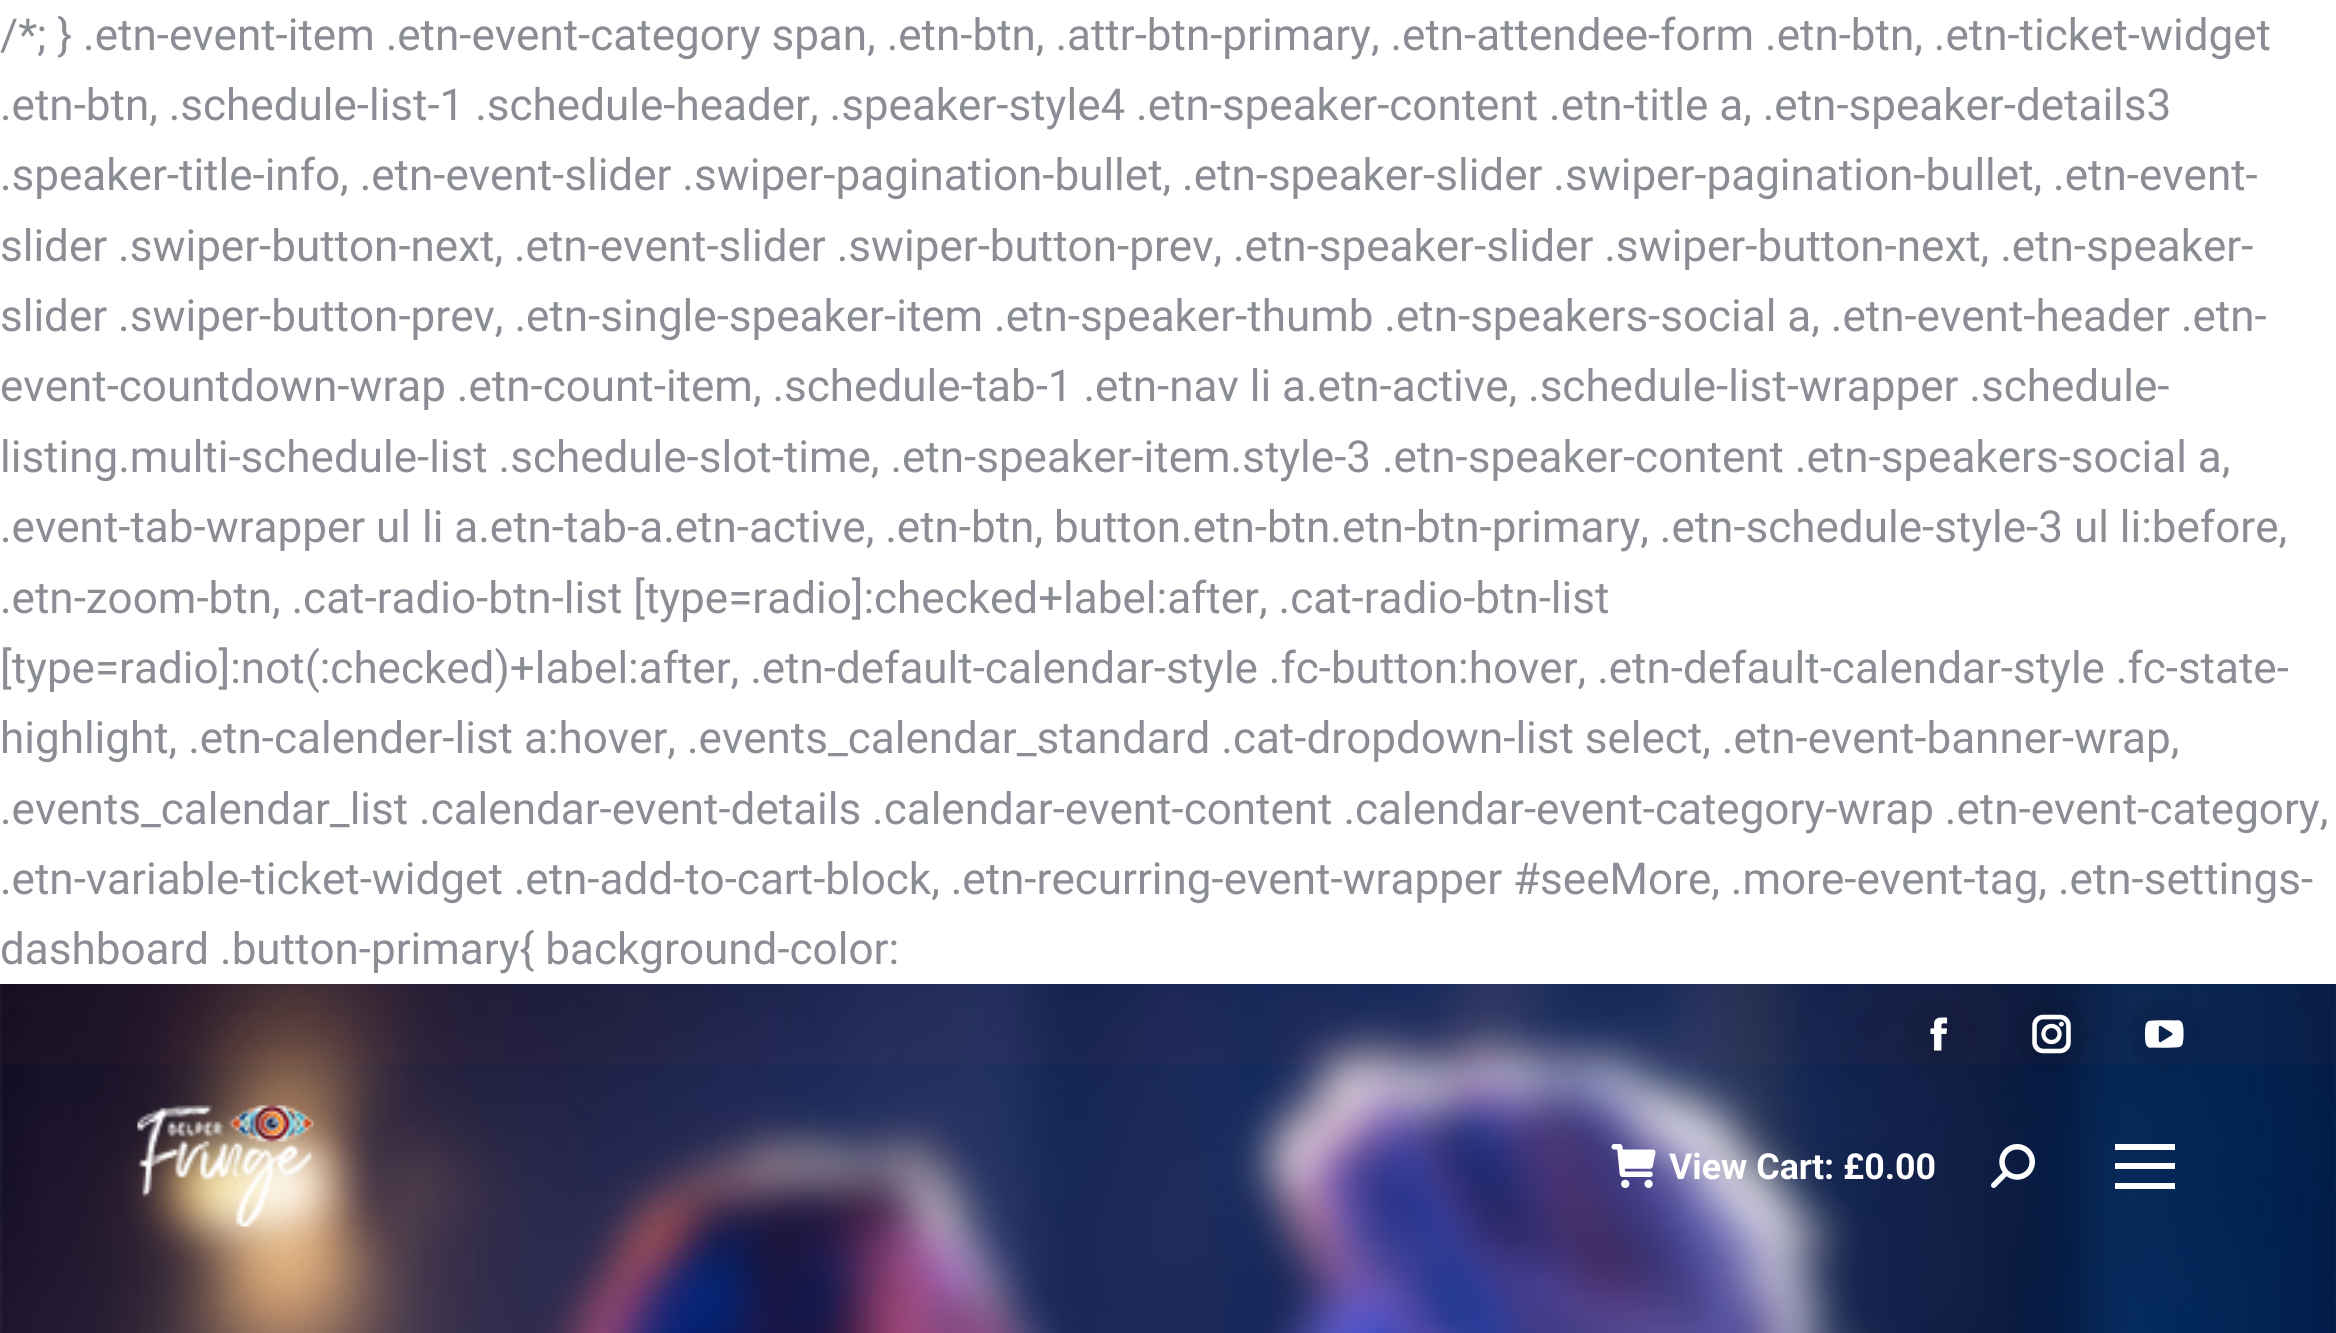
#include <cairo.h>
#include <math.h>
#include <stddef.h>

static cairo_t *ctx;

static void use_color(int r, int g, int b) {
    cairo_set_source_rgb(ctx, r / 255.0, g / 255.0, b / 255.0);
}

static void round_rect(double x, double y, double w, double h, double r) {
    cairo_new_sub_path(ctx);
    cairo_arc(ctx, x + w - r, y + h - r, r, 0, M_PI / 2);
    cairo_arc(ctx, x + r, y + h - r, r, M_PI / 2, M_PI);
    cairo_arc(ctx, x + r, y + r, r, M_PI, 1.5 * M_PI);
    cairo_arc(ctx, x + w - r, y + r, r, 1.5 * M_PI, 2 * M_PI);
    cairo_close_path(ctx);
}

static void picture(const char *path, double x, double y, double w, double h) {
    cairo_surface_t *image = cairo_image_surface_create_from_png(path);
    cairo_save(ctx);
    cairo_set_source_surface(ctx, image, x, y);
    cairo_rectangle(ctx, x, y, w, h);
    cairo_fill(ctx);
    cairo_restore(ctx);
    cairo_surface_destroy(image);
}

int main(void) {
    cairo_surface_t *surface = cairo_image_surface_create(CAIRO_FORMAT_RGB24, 2336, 1333);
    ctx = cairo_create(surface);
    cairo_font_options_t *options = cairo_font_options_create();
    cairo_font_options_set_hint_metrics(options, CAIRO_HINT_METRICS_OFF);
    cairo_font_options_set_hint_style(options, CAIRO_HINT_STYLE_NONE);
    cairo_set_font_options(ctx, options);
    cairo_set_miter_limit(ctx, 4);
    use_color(255, 255, 255);
    cairo_paint(ctx);
    cairo_select_font_face(ctx, "Roboto", CAIRO_FONT_SLANT_NORMAL, CAIRO_FONT_WEIGHT_NORMAL);
    cairo_set_font_size(ctx, 44);
    use_color(139, 141, 148);
    cairo_move_to(ctx, 0, 50);
    cairo_show_text(ctx, "/*; } .etn-event-item .etn-event-category span, .etn-btn, .attr-btn-primary, .etn-attendee-form .etn-btn, .etn-ticket-widget");
    cairo_move_to(ctx, 0, 120);
    cairo_show_text(ctx, ".etn-btn, .schedule-list-1 .schedule-header, .speaker-style4 .etn-speaker-content .etn-title a, .etn-speaker-details3");
    cairo_move_to(ctx, 0, 190);
    cairo_show_text(ctx, ".speaker-title-info, .etn-event-slider .swiper-pagination-bullet, .etn-speaker-slider .swiper-pagination-bullet, .etn-event-");
    cairo_move_to(ctx, 0, 261);
    cairo_show_text(ctx, "slider .swiper-button-next, .etn-event-slider .swiper-button-prev, .etn-speaker-slider .swiper-button-next, .etn-speaker-");
    cairo_move_to(ctx, 0, 331);
    cairo_show_text(ctx, "slider .swiper-button-prev, .etn-single-speaker-item .etn-speaker-thumb .etn-speakers-social a, .etn-event-header .etn-");
    cairo_move_to(ctx, 0, 401);
    cairo_show_text(ctx, "event-countdown-wrap .etn-count-item, .schedule-tab-1 .etn-nav li a.etn-active, .schedule-list-wrapper .schedule-");
    cairo_move_to(ctx, 0, 472);
    cairo_show_text(ctx, "listing.multi-schedule-list .schedule-slot-time, .etn-speaker-item.style-3 .etn-speaker-content .etn-speakers-social a,");
    cairo_move_to(ctx, 0, 542);
    cairo_show_text(ctx, ".event-tab-wrapper ul li a.etn-tab-a.etn-active, .etn-btn, button.etn-btn.etn-btn-primary, .etn-schedule-style-3 ul li:before,");
    cairo_move_to(ctx, 0, 613);
    cairo_show_text(ctx, ".etn-zoom-btn, .cat-radio-btn-list [type=radio]:checked+label:after, .cat-radio-btn-list");
    cairo_move_to(ctx, 0, 683);
    cairo_show_text(ctx, "[type=radio]:not(:checked)+label:after, .etn-default-calendar-style .fc-button:hover, .etn-default-calendar-style .fc-state-");
    cairo_move_to(ctx, 0, 753);
    cairo_show_text(ctx, "highlight, .etn-calender-list a:hover, .events_calendar_standard .cat-dropdown-list select, .etn-event-banner-wrap,");
    cairo_move_to(ctx, 0, 824);
    cairo_show_text(ctx, ".events_calendar_list .calendar-event-details .calendar-event-content .calendar-event-category-wrap .etn-event-category,");
    cairo_move_to(ctx, 0, 894);
    cairo_show_text(ctx, ".etn-variable-ticket-widget .etn-add-to-cart-block, .etn-recurring-event-wrapper #seeMore, .more-event-tag, .etn-settings-");
    cairo_move_to(ctx, 0, 964);
    cairo_show_text(ctx, "dashboard .button-primary{ background-color:");
    picture("img1.png", 0, 984, 2336, 349);
    cairo_set_source_rgba(ctx, 0.918, 0.341, 0.145, 0.03);
    cairo_rectangle(ctx, 0, 985, 2336, 79);
    cairo_fill(ctx);
    cairo_set_source_rgba(ctx, 0, 0, 0, 0.07);
    cairo_arc(ctx, 1939, 1034, 36, 0, 2 * M_PI);
    cairo_fill(ctx);
    picture("img2.png", 1930, 1017, 18, 34);
    round_rect(2016, 998, 71, 72, 35.5);
    cairo_fill(ctx);
    picture("img3.png", 2032, 1014, 39, 40);
    round_rect(2129, 998, 71, 72, 35.5);
    cairo_fill(ctx);
    picture("img4.png", 2145, 1020, 39, 28);
    picture("img5.png", 137, 1105, 177, 122);
    picture("img6.png", 1611, 1144, 45, 44);
    cairo_select_font_face(ctx, "Roboto", CAIRO_FONT_SLANT_NORMAL, CAIRO_FONT_WEIGHT_BOLD);
    cairo_set_font_size(ctx, 35.75);
    use_color(255, 255, 255);
    cairo_move_to(ctx, 1669, 1179);
    cairo_show_text(ctx, "View Cart: £0.00");
    picture("img7.png", 1991, 1144, 44, 44);
    cairo_rectangle(ctx, 2115, 1144, 60, 6);
    cairo_fill(ctx);
    cairo_rectangle(ctx, 2115, 1163, 60, 6);
    cairo_fill(ctx);
    cairo_rectangle(ctx, 2115, 1183, 60, 6);
    cairo_fill(ctx);
    cairo_surface_write_to_png(surface, "result.png");
    cairo_font_options_destroy(options);
    cairo_destroy(ctx);
    cairo_surface_destroy(surface);
    return 0;
}
